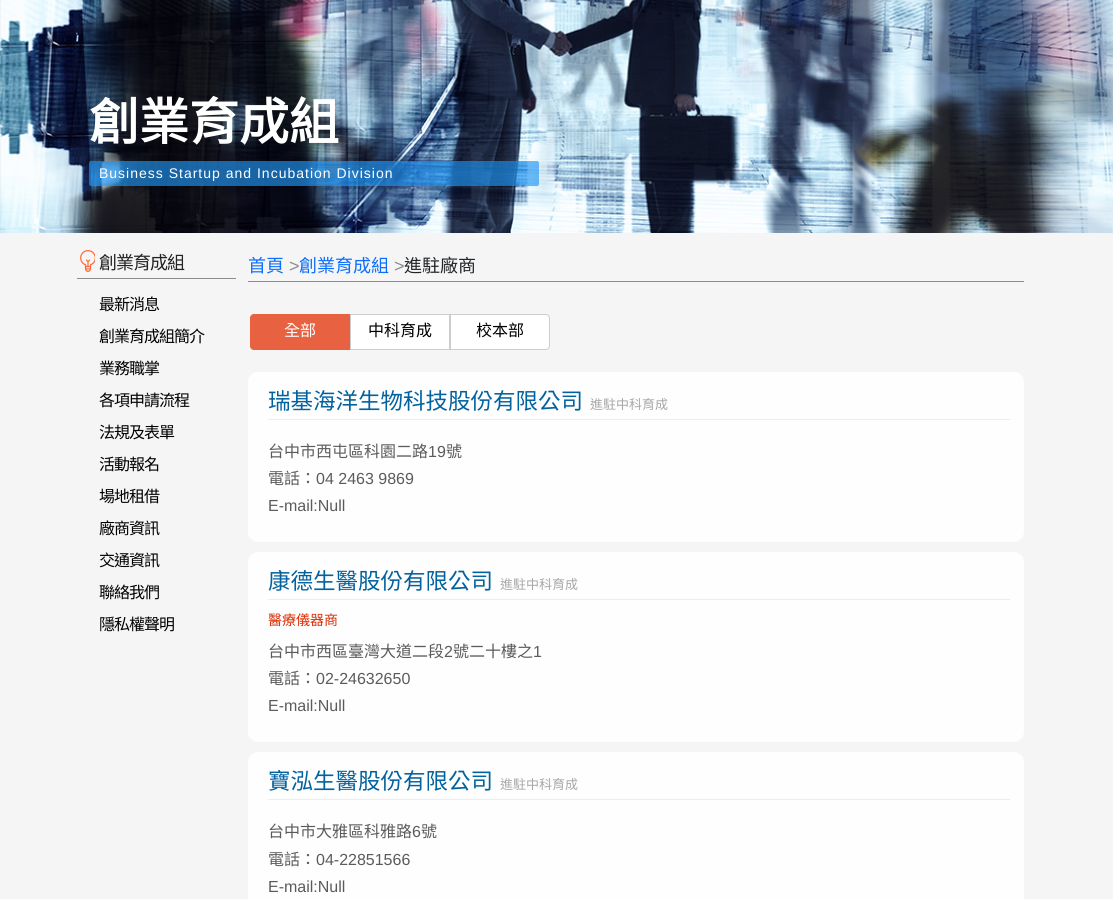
#include <cairo.h>
#include <math.h>
#include <stddef.h>

static cairo_t *ctx;

static void use_color(int r, int g, int b) {
    cairo_set_source_rgb(ctx, r / 255.0, g / 255.0, b / 255.0);
}

static void spaced_text(double x, double y, const char *s, double letter, double word) {
    cairo_move_to(ctx, x, y);
    while (*s) {
        char ch[5] = {0};
        int n = 0;
        do ch[n++] = *s++; while ((*s & 0xC0) == 0x80);
        cairo_show_text(ctx, ch);
        cairo_rel_move_to(ctx, letter + word * (*ch == ' '), 0);
    }
}

static void round_rect(double x, double y, double w, double h, double r) {
    cairo_new_sub_path(ctx);
    cairo_arc(ctx, x + w - r, y + h - r, r, 0, M_PI / 2);
    cairo_arc(ctx, x + r, y + h - r, r, M_PI / 2, M_PI);
    cairo_arc(ctx, x + r, y + r, r, M_PI, 1.5 * M_PI);
    cairo_arc(ctx, x + w - r, y + r, r, 1.5 * M_PI, 2 * M_PI);
    cairo_close_path(ctx);
}

static void picture(const char *path, double x, double y, double w, double h) {
    cairo_surface_t *image = cairo_image_surface_create_from_png(path);
    cairo_save(ctx);
    cairo_set_source_surface(ctx, image, x, y);
    cairo_rectangle(ctx, x, y, w, h);
    cairo_fill(ctx);
    cairo_restore(ctx);
    cairo_surface_destroy(image);
}

int main(void) {
    cairo_surface_t *surface = cairo_image_surface_create(CAIRO_FORMAT_RGB24, 1113, 899);
    ctx = cairo_create(surface);
    cairo_font_options_t *options = cairo_font_options_create();
    cairo_font_options_set_hint_metrics(options, CAIRO_HINT_METRICS_OFF);
    cairo_font_options_set_hint_style(options, CAIRO_HINT_STYLE_NONE);
    cairo_set_font_options(ctx, options);
    cairo_set_miter_limit(ctx, 4);
    use_color(245, 245, 245);
    cairo_paint(ctx);
    picture("img1.png", 0, 0, 1113, 233);
    cairo_select_font_face(ctx, "Noto Sans CJK TC", CAIRO_FONT_SLANT_NORMAL, CAIRO_FONT_WEIGHT_BOLD);
    cairo_set_font_size(ctx, 50);
    use_color(255, 255, 255);
    cairo_move_to(ctx, 89, 140);
    cairo_show_text(ctx, "創業育成組");
    cairo_set_source_rgba(ctx, 0.129, 0.588, 0.953, 0.65);
    round_rect(89, 161, 450, 25, 2);
    cairo_fill(ctx);
    cairo_select_font_face(ctx, "Liberation Sans", CAIRO_FONT_SLANT_NORMAL, CAIRO_FONT_WEIGHT_NORMAL);
    cairo_set_font_size(ctx, 14);
    use_color(255, 255, 255);
    spaced_text(99, 178, "Business Startup and Incubation Division", 1, 0);
    use_color(140, 140, 140);
    cairo_rectangle(ctx, 77, 278, 159, 1);
    cairo_fill(ctx);
    picture("img2.png", 80, 250, 15, 22);
    cairo_select_font_face(ctx, "Noto Sans CJK TC", CAIRO_FONT_SLANT_NORMAL, CAIRO_FONT_WEIGHT_NORMAL);
    cairo_set_font_size(ctx, 18);
    use_color(35, 35, 35);
    spaced_text(99, 269, "創業育成組", -1, 0);
    cairo_set_font_size(ctx, 16);
    use_color(0, 0, 0);
    spaced_text(99, 310, "最新消息", -1, 0);
    spaced_text(99, 342, "創業育成組簡介", -1, 0);
    spaced_text(99, 374, "業務職掌", -1, 0);
    spaced_text(99, 406, "各項申請流程", -1, 0);
    spaced_text(99, 438, "法規及表單", -1, 0);
    spaced_text(99, 470, "活動報名", -1, 0);
    spaced_text(99, 502, "場地租借", -1, 0);
    spaced_text(99, 534, "廠商資訊", -1, 0);
    spaced_text(99, 566, "交通資訊", -1, 0);
    spaced_text(99, 598, "聯絡我們", -1, 0);
    spaced_text(99, 630, "隱私權聲明", -1, 0);
    use_color(140, 140, 140);
    cairo_rectangle(ctx, 248, 281, 776, 1);
    cairo_fill(ctx);
    cairo_set_font_size(ctx, 18);
    use_color(13, 110, 253);
    cairo_move_to(ctx, 248, 272);
    cairo_show_text(ctx, "首頁");
    cairo_select_font_face(ctx, "Liberation Sans", CAIRO_FONT_SLANT_NORMAL, CAIRO_FONT_WEIGHT_NORMAL);
    use_color(140, 140, 140);
    cairo_move_to(ctx, 289, 272);
    cairo_show_text(ctx, ">");
    cairo_select_font_face(ctx, "Noto Sans CJK TC", CAIRO_FONT_SLANT_NORMAL, CAIRO_FONT_WEIGHT_NORMAL);
    use_color(13, 110, 253);
    cairo_move_to(ctx, 299, 272);
    cairo_show_text(ctx, "創業育成組");
    cairo_select_font_face(ctx, "Liberation Sans", CAIRO_FONT_SLANT_NORMAL, CAIRO_FONT_WEIGHT_NORMAL);
    use_color(140, 140, 140);
    cairo_move_to(ctx, 394, 272);
    cairo_show_text(ctx, ">");
    cairo_select_font_face(ctx, "Noto Sans CJK TC", CAIRO_FONT_SLANT_NORMAL, CAIRO_FONT_WEIGHT_NORMAL);
    use_color(33, 37, 41);
    cairo_move_to(ctx, 404, 272);
    cairo_show_text(ctx, "進駐廠商");
    use_color(232, 98, 65);
    cairo_new_path(ctx);
    cairo_move_to(ctx, 254, 314.5);
    cairo_line_to(ctx, 349.5, 314.5);
    cairo_line_to(ctx, 349.5, 349.5);
    cairo_line_to(ctx, 254, 349.5);
    cairo_curve_to(ctx, 252, 349.5, 250.5, 348, 250.5, 346);
    cairo_line_to(ctx, 250.5, 318);
    cairo_curve_to(ctx, 250.5, 316, 252, 314.5, 254, 314.5);
    cairo_close_path(ctx);
    cairo_fill_preserve(ctx);
    cairo_set_line_width(ctx, 1);
    cairo_stroke(ctx);
    cairo_set_font_size(ctx, 16);
    use_color(255, 255, 255);
    cairo_move_to(ctx, 284, 336);
    cairo_show_text(ctx, "全部");
    cairo_rectangle(ctx, 350.5, 314.5, 99, 35);
    cairo_fill_preserve(ctx);
    use_color(204, 204, 204);
    cairo_stroke(ctx);
    use_color(0, 0, 0);
    cairo_move_to(ctx, 368, 336);
    cairo_show_text(ctx, "中科育成");
    use_color(255, 255, 255);
    cairo_new_path(ctx);
    cairo_move_to(ctx, 450.5, 314.5);
    cairo_line_to(ctx, 546, 314.5);
    cairo_curve_to(ctx, 548, 314.5, 549.5, 316, 549.5, 318);
    cairo_line_to(ctx, 549.5, 346);
    cairo_curve_to(ctx, 549.5, 348, 548, 349.5, 546, 349.5);
    cairo_line_to(ctx, 450.5, 349.5);
    cairo_close_path(ctx);
    cairo_fill_preserve(ctx);
    use_color(204, 204, 204);
    cairo_stroke(ctx);
    use_color(0, 0, 0);
    cairo_move_to(ctx, 476, 336);
    cairo_show_text(ctx, "校本部");
    use_color(254, 254, 254);
    round_rect(248, 372, 776, 170, 10);
    cairo_fill(ctx);
    use_color(237, 237, 237);
    cairo_rectangle(ctx, 268, 419, 742, 1);
    cairo_fill(ctx);
    cairo_set_font_size(ctx, 22.5);
    use_color(2, 98, 159);
    cairo_move_to(ctx, 268, 409);
    cairo_show_text(ctx, "瑞基海洋生物科技股份有限公司");
    cairo_set_font_size(ctx, 13);
    use_color(167, 167, 167);
    cairo_move_to(ctx, 590, 409);
    cairo_show_text(ctx, "進駐中科育成");
    cairo_set_font_size(ctx, 16);
    use_color(91, 91, 91);
    cairo_move_to(ctx, 268, 457);
    cairo_show_text(ctx, "台中市西屯區科園二路");
    cairo_select_font_face(ctx, "Liberation Sans", CAIRO_FONT_SLANT_NORMAL, CAIRO_FONT_WEIGHT_NORMAL);
    cairo_move_to(ctx, 428, 457);
    cairo_show_text(ctx, "19");
    cairo_select_font_face(ctx, "Noto Sans CJK TC", CAIRO_FONT_SLANT_NORMAL, CAIRO_FONT_WEIGHT_NORMAL);
    cairo_move_to(ctx, 446, 457);
    cairo_show_text(ctx, "號");
    cairo_move_to(ctx, 268, 484);
    cairo_show_text(ctx, "電話：");
    cairo_select_font_face(ctx, "Liberation Sans", CAIRO_FONT_SLANT_NORMAL, CAIRO_FONT_WEIGHT_NORMAL);
    cairo_move_to(ctx, 316, 484);
    cairo_show_text(ctx, "04 2463 9869");
    cairo_move_to(ctx, 268, 511);
    cairo_show_text(ctx, "E-mail:Null");
    use_color(254, 254, 254);
    round_rect(248, 552, 776, 190, 10);
    cairo_fill(ctx);
    use_color(237, 237, 237);
    cairo_rectangle(ctx, 268, 599, 742, 1);
    cairo_fill(ctx);
    cairo_select_font_face(ctx, "Noto Sans CJK TC", CAIRO_FONT_SLANT_NORMAL, CAIRO_FONT_WEIGHT_NORMAL);
    cairo_set_font_size(ctx, 22.5);
    use_color(2, 98, 159);
    cairo_move_to(ctx, 268, 589);
    cairo_show_text(ctx, "康德生醫股份有限公司");
    cairo_set_font_size(ctx, 13);
    use_color(167, 167, 167);
    cairo_move_to(ctx, 500, 589);
    cairo_show_text(ctx, "進駐中科育成");
    cairo_set_font_size(ctx, 14);
    use_color(219, 43, 0);
    cairo_move_to(ctx, 268, 625);
    cairo_show_text(ctx, "醫療儀器商");
    cairo_set_font_size(ctx, 16);
    use_color(91, 91, 91);
    cairo_move_to(ctx, 268, 657);
    cairo_show_text(ctx, "台中市西區臺灣大道二段");
    cairo_select_font_face(ctx, "Liberation Sans", CAIRO_FONT_SLANT_NORMAL, CAIRO_FONT_WEIGHT_NORMAL);
    cairo_move_to(ctx, 444, 657);
    cairo_show_text(ctx, "2");
    cairo_select_font_face(ctx, "Noto Sans CJK TC", CAIRO_FONT_SLANT_NORMAL, CAIRO_FONT_WEIGHT_NORMAL);
    cairo_move_to(ctx, 453, 657);
    cairo_show_text(ctx, "號二十樓之");
    cairo_select_font_face(ctx, "Liberation Sans", CAIRO_FONT_SLANT_NORMAL, CAIRO_FONT_WEIGHT_NORMAL);
    cairo_move_to(ctx, 533, 657);
    cairo_show_text(ctx, "1");
    cairo_select_font_face(ctx, "Noto Sans CJK TC", CAIRO_FONT_SLANT_NORMAL, CAIRO_FONT_WEIGHT_NORMAL);
    cairo_move_to(ctx, 268, 684);
    cairo_show_text(ctx, "電話：");
    cairo_select_font_face(ctx, "Liberation Sans", CAIRO_FONT_SLANT_NORMAL, CAIRO_FONT_WEIGHT_NORMAL);
    cairo_move_to(ctx, 316, 684);
    cairo_show_text(ctx, "02-24632650");
    cairo_move_to(ctx, 268, 711);
    cairo_show_text(ctx, "E-mail:Null");
    use_color(254, 254, 254);
    round_rect(248, 752, 776, 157, 10);
    cairo_fill(ctx);
    use_color(237, 237, 237);
    cairo_rectangle(ctx, 268, 799, 742, 1);
    cairo_fill(ctx);
    cairo_select_font_face(ctx, "Noto Sans CJK TC", CAIRO_FONT_SLANT_NORMAL, CAIRO_FONT_WEIGHT_NORMAL);
    cairo_set_font_size(ctx, 22.5);
    use_color(2, 98, 159);
    cairo_move_to(ctx, 268, 789);
    cairo_show_text(ctx, "寶泓生醫股份有限公司");
    cairo_set_font_size(ctx, 13);
    use_color(167, 167, 167);
    cairo_move_to(ctx, 500, 789);
    cairo_show_text(ctx, "進駐中科育成");
    cairo_set_font_size(ctx, 16);
    use_color(91, 91, 91);
    cairo_move_to(ctx, 268, 837);
    cairo_show_text(ctx, "台中市大雅區科雅路");
    cairo_select_font_face(ctx, "Liberation Sans", CAIRO_FONT_SLANT_NORMAL, CAIRO_FONT_WEIGHT_NORMAL);
    cairo_move_to(ctx, 412, 837);
    cairo_show_text(ctx, "6");
    cairo_select_font_face(ctx, "Noto Sans CJK TC", CAIRO_FONT_SLANT_NORMAL, CAIRO_FONT_WEIGHT_NORMAL);
    cairo_move_to(ctx, 421, 837);
    cairo_show_text(ctx, "號");
    cairo_move_to(ctx, 268, 865);
    cairo_show_text(ctx, "電話：");
    cairo_select_font_face(ctx, "Liberation Sans", CAIRO_FONT_SLANT_NORMAL, CAIRO_FONT_WEIGHT_NORMAL);
    cairo_move_to(ctx, 316, 865);
    cairo_show_text(ctx, "04-22851566");
    cairo_move_to(ctx, 268, 892);
    cairo_show_text(ctx, "E-mail:Null");
    cairo_surface_write_to_png(surface, "result.png");
    cairo_font_options_destroy(options);
    cairo_destroy(ctx);
    cairo_surface_destroy(surface);
    return 0;
}
